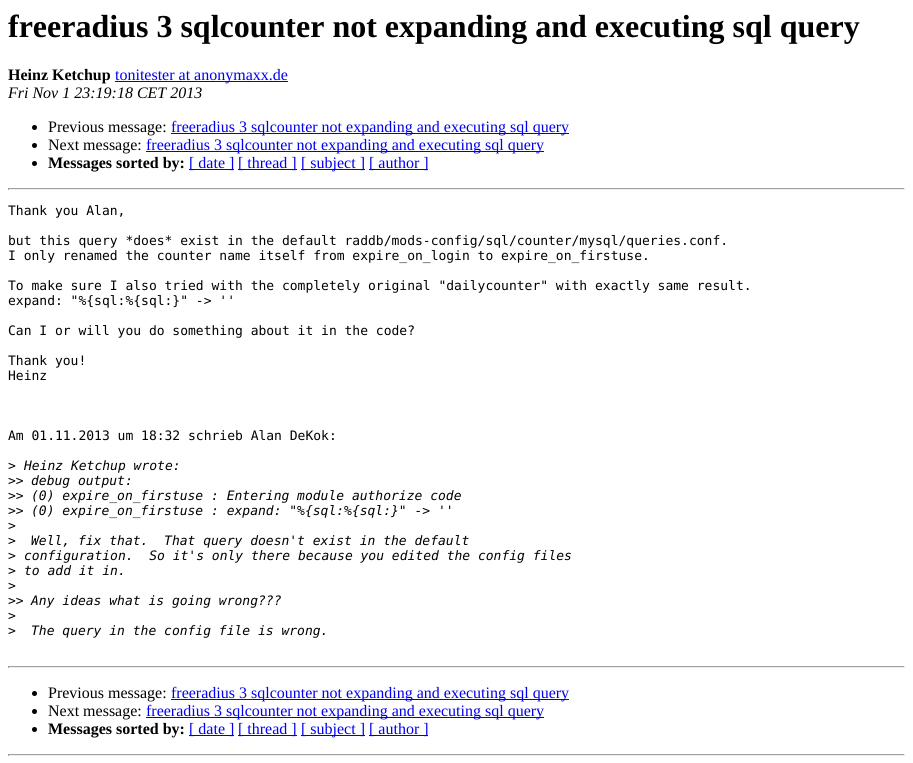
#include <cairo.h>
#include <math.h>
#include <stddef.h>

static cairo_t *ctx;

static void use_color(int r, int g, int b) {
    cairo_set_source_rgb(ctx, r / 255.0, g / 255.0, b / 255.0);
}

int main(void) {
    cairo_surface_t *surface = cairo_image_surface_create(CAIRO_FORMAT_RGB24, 913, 763);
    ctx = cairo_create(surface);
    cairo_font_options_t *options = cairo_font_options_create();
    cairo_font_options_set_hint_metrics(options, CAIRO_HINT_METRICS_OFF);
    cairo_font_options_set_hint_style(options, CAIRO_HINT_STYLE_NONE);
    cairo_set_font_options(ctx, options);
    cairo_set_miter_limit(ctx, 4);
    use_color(255, 255, 255);
    cairo_paint(ctx);
    cairo_select_font_face(ctx, "Liberation Serif", CAIRO_FONT_SLANT_NORMAL, CAIRO_FONT_WEIGHT_BOLD);
    cairo_set_font_size(ctx, 32);
    use_color(0, 0, 0);
    cairo_move_to(ctx, 8, 37);
    cairo_show_text(ctx, "freeradius 3 sqlcounter not expanding and executing sql query");
    cairo_set_font_size(ctx, 16);
    cairo_move_to(ctx, 8, 80);
    cairo_show_text(ctx, "Heinz Ketchup");
    use_color(0, 0, 238);
    cairo_rectangle(ctx, 115, 81, 173, 1);
    cairo_fill(ctx);
    cairo_select_font_face(ctx, "Liberation Serif", CAIRO_FONT_SLANT_NORMAL, CAIRO_FONT_WEIGHT_NORMAL);
    cairo_move_to(ctx, 115, 80);
    cairo_show_text(ctx, "tonitester at anonymaxx.de");
    cairo_select_font_face(ctx, "Liberation Serif", CAIRO_FONT_SLANT_ITALIC, CAIRO_FONT_WEIGHT_NORMAL);
    use_color(0, 0, 0);
    cairo_move_to(ctx, 8, 98);
    cairo_show_text(ctx, "Fri Nov 1 23:19:18 CET 2013");
    cairo_new_path(ctx);
    cairo_arc(ctx, 34.5, 127.5, 2.5, 0, 2 * M_PI);
    cairo_fill(ctx);
    cairo_select_font_face(ctx, "Liberation Serif", CAIRO_FONT_SLANT_NORMAL, CAIRO_FONT_WEIGHT_NORMAL);
    cairo_move_to(ctx, 48, 132);
    cairo_show_text(ctx, "Previous message:");
    use_color(0, 0, 238);
    cairo_rectangle(ctx, 171, 133, 398, 1);
    cairo_fill(ctx);
    cairo_move_to(ctx, 171, 132);
    cairo_show_text(ctx, "freeradius 3 sqlcounter not expanding and executing sql query");
    use_color(0, 0, 0);
    cairo_new_path(ctx);
    cairo_arc(ctx, 34.5, 145.5, 2.5, 0, 2 * M_PI);
    cairo_fill(ctx);
    cairo_move_to(ctx, 48, 150);
    cairo_show_text(ctx, "Next message:");
    use_color(0, 0, 238);
    cairo_rectangle(ctx, 146, 151, 398, 1);
    cairo_fill(ctx);
    cairo_move_to(ctx, 146, 150);
    cairo_show_text(ctx, "freeradius 3 sqlcounter not expanding and executing sql query");
    use_color(0, 0, 0);
    cairo_new_path(ctx);
    cairo_arc(ctx, 34.5, 163.5, 2.5, 0, 2 * M_PI);
    cairo_fill(ctx);
    cairo_select_font_face(ctx, "Liberation Serif", CAIRO_FONT_SLANT_NORMAL, CAIRO_FONT_WEIGHT_BOLD);
    cairo_move_to(ctx, 48, 168);
    cairo_show_text(ctx, "Messages sorted by:");
    use_color(0, 0, 238);
    cairo_rectangle(ctx, 189, 169, 45, 1);
    cairo_fill(ctx);
    cairo_select_font_face(ctx, "Liberation Serif", CAIRO_FONT_SLANT_NORMAL, CAIRO_FONT_WEIGHT_NORMAL);
    cairo_move_to(ctx, 189, 168);
    cairo_show_text(ctx, "[ date ]");
    cairo_rectangle(ctx, 238, 169, 59, 1);
    cairo_fill(ctx);
    cairo_move_to(ctx, 238, 168);
    cairo_show_text(ctx, "[ thread ]");
    cairo_rectangle(ctx, 301, 169, 64, 1);
    cairo_fill(ctx);
    cairo_move_to(ctx, 301, 168);
    cairo_show_text(ctx, "[ subject ]");
    cairo_rectangle(ctx, 369, 169, 59, 1);
    cairo_fill(ctx);
    cairo_move_to(ctx, 369, 168);
    cairo_show_text(ctx, "[ author ]");
    use_color(159, 159, 159);
    cairo_rectangle(ctx, 8, 188, 897, 1);
    cairo_fill(ctx);
    use_color(238, 238, 238);
    cairo_rectangle(ctx, 904, 188, 1, 2);
    cairo_fill(ctx);
    cairo_rectangle(ctx, 8, 189, 897, 1);
    cairo_fill(ctx);
    use_color(159, 159, 159);
    cairo_rectangle(ctx, 8, 188, 1, 2);
    cairo_fill(ctx);
    cairo_select_font_face(ctx, "DejaVu Sans Mono", CAIRO_FONT_SLANT_NORMAL, CAIRO_FONT_WEIGHT_NORMAL);
    cairo_set_font_size(ctx, 13);
    use_color(0, 0, 0);
    cairo_move_to(ctx, 8, 215);
    cairo_show_text(ctx, "Thank you Alan,");
    cairo_move_to(ctx, 8, 245);
    cairo_show_text(ctx, "but this query *does* exist in the default raddb/mods-config/sql/counter/mysql/queries.conf.");
    cairo_move_to(ctx, 8, 260);
    cairo_show_text(ctx, "I only renamed the counter name itself from expire_on_login to expire_on_firstuse.");
    cairo_move_to(ctx, 8, 290);
    cairo_show_text(ctx, "To make sure I also tried with the completely original \"dailycounter\" with exactly same result.");
    cairo_move_to(ctx, 8, 305);
    cairo_show_text(ctx, "expand: \"%{sql:%{sql:}\" -> ''");
    cairo_move_to(ctx, 8, 335);
    cairo_show_text(ctx, "Can I or will you do something about it in the code?");
    cairo_move_to(ctx, 8, 365);
    cairo_show_text(ctx, "Thank you!");
    cairo_move_to(ctx, 8, 380);
    cairo_show_text(ctx, "Heinz");
    cairo_move_to(ctx, 8, 440);
    cairo_show_text(ctx, "Am 01.11.2013 um 18:32 schrieb Alan DeKok:");
    cairo_move_to(ctx, 8, 470);
    cairo_show_text(ctx, ">");
    cairo_select_font_face(ctx, "DejaVu Sans Mono", CAIRO_FONT_SLANT_ITALIC, CAIRO_FONT_WEIGHT_NORMAL);
    cairo_move_to(ctx, 24, 470);
    cairo_show_text(ctx, "Heinz Ketchup wrote:");
    cairo_select_font_face(ctx, "DejaVu Sans Mono", CAIRO_FONT_SLANT_NORMAL, CAIRO_FONT_WEIGHT_NORMAL);
    cairo_move_to(ctx, 8, 485);
    cairo_show_text(ctx, ">>");
    cairo_select_font_face(ctx, "DejaVu Sans Mono", CAIRO_FONT_SLANT_ITALIC, CAIRO_FONT_WEIGHT_NORMAL);
    cairo_move_to(ctx, 31, 485);
    cairo_show_text(ctx, "debug output:");
    cairo_select_font_face(ctx, "DejaVu Sans Mono", CAIRO_FONT_SLANT_NORMAL, CAIRO_FONT_WEIGHT_NORMAL);
    cairo_move_to(ctx, 8, 500);
    cairo_show_text(ctx, ">>");
    cairo_select_font_face(ctx, "DejaVu Sans Mono", CAIRO_FONT_SLANT_ITALIC, CAIRO_FONT_WEIGHT_NORMAL);
    cairo_move_to(ctx, 31, 500);
    cairo_show_text(ctx, "(0) expire_on_firstuse : Entering module authorize code");
    cairo_select_font_face(ctx, "DejaVu Sans Mono", CAIRO_FONT_SLANT_NORMAL, CAIRO_FONT_WEIGHT_NORMAL);
    cairo_move_to(ctx, 8, 515);
    cairo_show_text(ctx, ">>");
    cairo_select_font_face(ctx, "DejaVu Sans Mono", CAIRO_FONT_SLANT_ITALIC, CAIRO_FONT_WEIGHT_NORMAL);
    cairo_move_to(ctx, 31, 515);
    cairo_show_text(ctx, "(0) expire_on_firstuse : expand: \"%{sql:%{sql:}\" -> ''");
    cairo_select_font_face(ctx, "DejaVu Sans Mono", CAIRO_FONT_SLANT_NORMAL, CAIRO_FONT_WEIGHT_NORMAL);
    cairo_move_to(ctx, 8, 530);
    cairo_show_text(ctx, ">");
    cairo_move_to(ctx, 8, 545);
    cairo_show_text(ctx, ">");
    cairo_select_font_face(ctx, "DejaVu Sans Mono", CAIRO_FONT_SLANT_ITALIC, CAIRO_FONT_WEIGHT_NORMAL);
    cairo_move_to(ctx, 31, 545);
    cairo_show_text(ctx, "Well, fix that.  That query doesn't exist in the default");
    cairo_select_font_face(ctx, "DejaVu Sans Mono", CAIRO_FONT_SLANT_NORMAL, CAIRO_FONT_WEIGHT_NORMAL);
    cairo_move_to(ctx, 8, 560);
    cairo_show_text(ctx, ">");
    cairo_select_font_face(ctx, "DejaVu Sans Mono", CAIRO_FONT_SLANT_ITALIC, CAIRO_FONT_WEIGHT_NORMAL);
    cairo_move_to(ctx, 24, 560);
    cairo_show_text(ctx, "configuration.  So it's only there because you edited the config files");
    cairo_select_font_face(ctx, "DejaVu Sans Mono", CAIRO_FONT_SLANT_NORMAL, CAIRO_FONT_WEIGHT_NORMAL);
    cairo_move_to(ctx, 8, 575);
    cairo_show_text(ctx, ">");
    cairo_select_font_face(ctx, "DejaVu Sans Mono", CAIRO_FONT_SLANT_ITALIC, CAIRO_FONT_WEIGHT_NORMAL);
    cairo_move_to(ctx, 24, 575);
    cairo_show_text(ctx, "to add it in.");
    cairo_select_font_face(ctx, "DejaVu Sans Mono", CAIRO_FONT_SLANT_NORMAL, CAIRO_FONT_WEIGHT_NORMAL);
    cairo_move_to(ctx, 8, 590);
    cairo_show_text(ctx, ">");
    cairo_move_to(ctx, 8, 605);
    cairo_show_text(ctx, ">>");
    cairo_select_font_face(ctx, "DejaVu Sans Mono", CAIRO_FONT_SLANT_ITALIC, CAIRO_FONT_WEIGHT_NORMAL);
    cairo_move_to(ctx, 31, 605);
    cairo_show_text(ctx, "Any ideas what is going wrong?\077?");
    cairo_select_font_face(ctx, "DejaVu Sans Mono", CAIRO_FONT_SLANT_NORMAL, CAIRO_FONT_WEIGHT_NORMAL);
    cairo_move_to(ctx, 8, 620);
    cairo_show_text(ctx, ">");
    cairo_move_to(ctx, 8, 635);
    cairo_show_text(ctx, ">");
    cairo_select_font_face(ctx, "DejaVu Sans Mono", CAIRO_FONT_SLANT_ITALIC, CAIRO_FONT_WEIGHT_NORMAL);
    cairo_move_to(ctx, 31, 635);
    cairo_show_text(ctx, "The query in the config file is wrong.");
    use_color(159, 159, 159);
    cairo_rectangle(ctx, 8, 666, 897, 1);
    cairo_fill(ctx);
    use_color(238, 238, 238);
    cairo_rectangle(ctx, 904, 666, 1, 2);
    cairo_fill(ctx);
    cairo_rectangle(ctx, 8, 667, 897, 1);
    cairo_fill(ctx);
    use_color(159, 159, 159);
    cairo_rectangle(ctx, 8, 666, 1, 2);
    cairo_fill(ctx);
    use_color(0, 0, 0);
    cairo_arc(ctx, 34.5, 693.5, 2.5, 0, 2 * M_PI);
    cairo_fill(ctx);
    cairo_select_font_face(ctx, "Liberation Serif", CAIRO_FONT_SLANT_NORMAL, CAIRO_FONT_WEIGHT_NORMAL);
    cairo_set_font_size(ctx, 16);
    cairo_move_to(ctx, 48, 698);
    cairo_show_text(ctx, "Previous message:");
    use_color(0, 0, 238);
    cairo_rectangle(ctx, 171, 699, 398, 1);
    cairo_fill(ctx);
    cairo_move_to(ctx, 171, 698);
    cairo_show_text(ctx, "freeradius 3 sqlcounter not expanding and executing sql query");
    use_color(0, 0, 0);
    cairo_new_path(ctx);
    cairo_arc(ctx, 34.5, 711.5, 2.5, 0, 2 * M_PI);
    cairo_fill(ctx);
    cairo_move_to(ctx, 48, 716);
    cairo_show_text(ctx, "Next message:");
    use_color(0, 0, 238);
    cairo_rectangle(ctx, 146, 717, 398, 1);
    cairo_fill(ctx);
    cairo_move_to(ctx, 146, 716);
    cairo_show_text(ctx, "freeradius 3 sqlcounter not expanding and executing sql query");
    use_color(0, 0, 0);
    cairo_new_path(ctx);
    cairo_arc(ctx, 34.5, 729.5, 2.5, 0, 2 * M_PI);
    cairo_fill(ctx);
    cairo_select_font_face(ctx, "Liberation Serif", CAIRO_FONT_SLANT_NORMAL, CAIRO_FONT_WEIGHT_BOLD);
    cairo_move_to(ctx, 48, 734);
    cairo_show_text(ctx, "Messages sorted by:");
    use_color(0, 0, 238);
    cairo_rectangle(ctx, 189, 735, 45, 1);
    cairo_fill(ctx);
    cairo_select_font_face(ctx, "Liberation Serif", CAIRO_FONT_SLANT_NORMAL, CAIRO_FONT_WEIGHT_NORMAL);
    cairo_move_to(ctx, 189, 734);
    cairo_show_text(ctx, "[ date ]");
    cairo_rectangle(ctx, 238, 735, 59, 1);
    cairo_fill(ctx);
    cairo_move_to(ctx, 238, 734);
    cairo_show_text(ctx, "[ thread ]");
    cairo_rectangle(ctx, 301, 735, 64, 1);
    cairo_fill(ctx);
    cairo_move_to(ctx, 301, 734);
    cairo_show_text(ctx, "[ subject ]");
    cairo_rectangle(ctx, 369, 735, 59, 1);
    cairo_fill(ctx);
    cairo_move_to(ctx, 369, 734);
    cairo_show_text(ctx, "[ author ]");
    use_color(159, 159, 159);
    cairo_rectangle(ctx, 8, 754, 897, 1);
    cairo_fill(ctx);
    use_color(238, 238, 238);
    cairo_rectangle(ctx, 904, 754, 1, 2);
    cairo_fill(ctx);
    cairo_rectangle(ctx, 8, 755, 897, 1);
    cairo_fill(ctx);
    use_color(159, 159, 159);
    cairo_rectangle(ctx, 8, 754, 1, 2);
    cairo_fill(ctx);
    cairo_surface_write_to_png(surface, "result.png");
    cairo_font_options_destroy(options);
    cairo_destroy(ctx);
    cairo_surface_destroy(surface);
    return 0;
}
